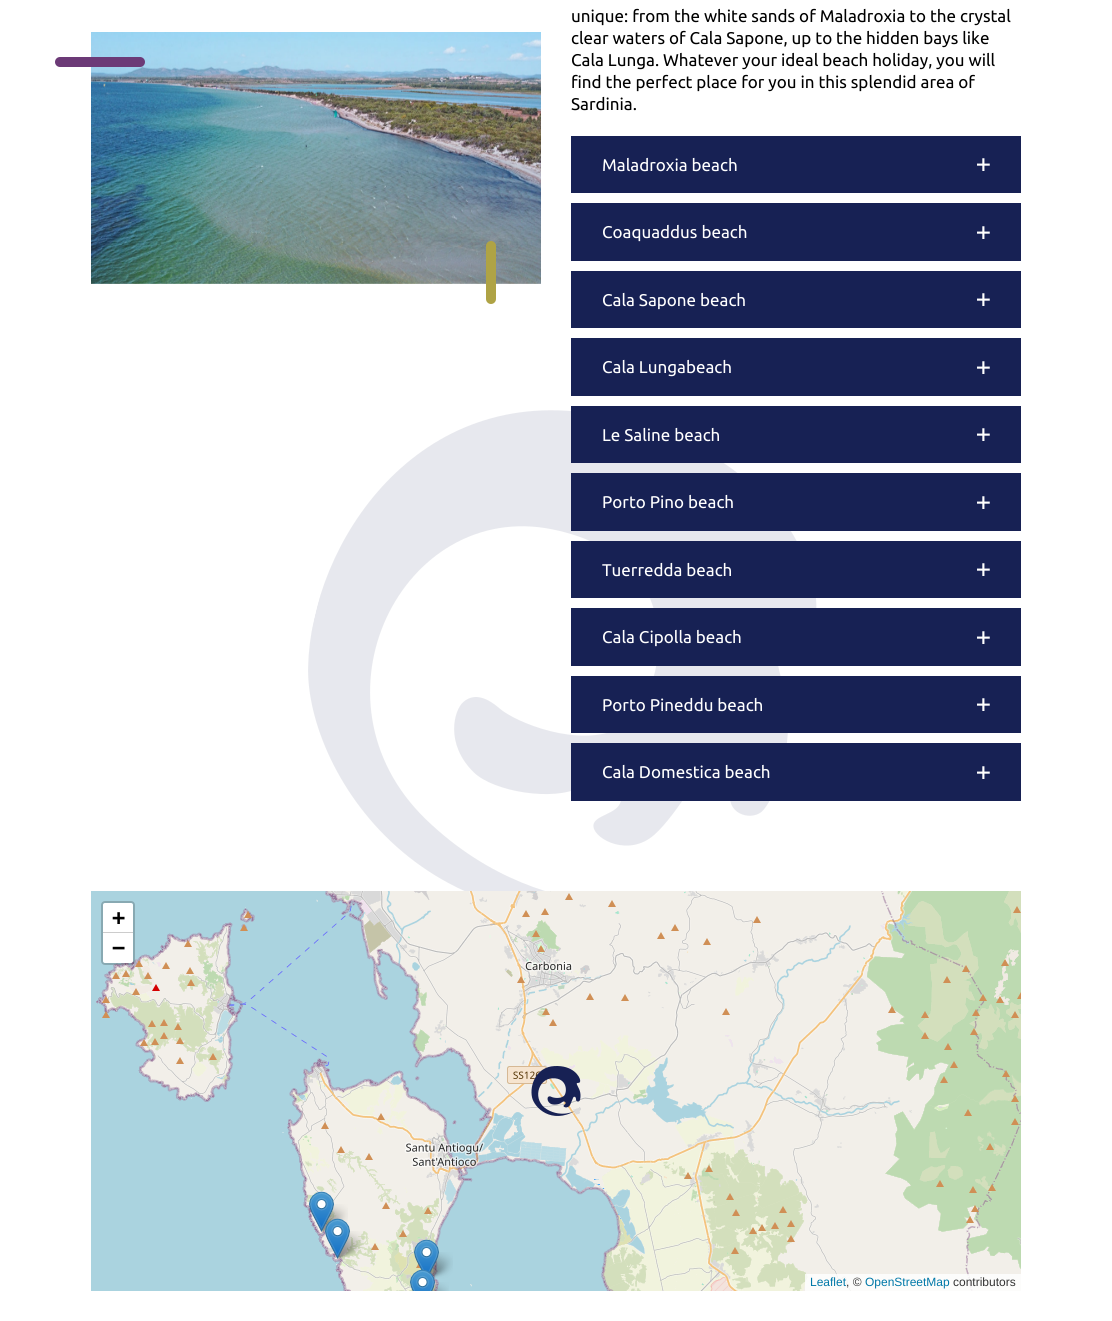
#include <cairo.h>
#include <math.h>
#include <stddef.h>

static cairo_t *ctx;

static void use_color(int r, int g, int b) {
    cairo_set_source_rgb(ctx, r / 255.0, g / 255.0, b / 255.0);
}

static void round_rect(double x, double y, double w, double h, double r) {
    cairo_new_sub_path(ctx);
    cairo_arc(ctx, x + w - r, y + h - r, r, 0, M_PI / 2);
    cairo_arc(ctx, x + r, y + h - r, r, M_PI / 2, M_PI);
    cairo_arc(ctx, x + r, y + r, r, M_PI, 1.5 * M_PI);
    cairo_arc(ctx, x + w - r, y + r, r, 1.5 * M_PI, 2 * M_PI);
    cairo_close_path(ctx);
}

static void picture(const char *path, double x, double y, double w, double h) {
    cairo_surface_t *image = cairo_image_surface_create_from_png(path);
    cairo_save(ctx);
    cairo_set_source_surface(ctx, image, x, y);
    cairo_rectangle(ctx, x, y, w, h);
    cairo_fill(ctx);
    cairo_restore(ctx);
    cairo_surface_destroy(image);
}

int main(void) {
    cairo_surface_t *surface = cairo_image_surface_create(CAIRO_FORMAT_RGB24, 1112, 1321);
    ctx = cairo_create(surface);
    cairo_font_options_t *options = cairo_font_options_create();
    cairo_font_options_set_hint_metrics(options, CAIRO_HINT_METRICS_OFF);
    cairo_font_options_set_hint_style(options, CAIRO_HINT_STYLE_NONE);
    cairo_set_font_options(ctx, options);
    cairo_set_miter_limit(ctx, 4);
    use_color(255, 255, 255);
    cairo_paint(ctx);
    picture("img1.png", 91, 32, 450, 252);
    use_color(108, 58, 119);
    round_rect(55, 57, 90, 10, 5);
    cairo_fill(ctx);
    use_color(175, 163, 69);
    round_rect(486, 241, 10, 63, 5);
    cairo_fill(ctx);
    cairo_select_font_face(ctx, "Ubuntu", CAIRO_FONT_SLANT_NORMAL, CAIRO_FONT_WEIGHT_NORMAL);
    cairo_set_font_size(ctx, 17);
    use_color(0, 0, 0);
    cairo_move_to(ctx, 571, 22);
    cairo_show_text(ctx, "unique: from the white sands of Maladroxia to the crystal");
    cairo_move_to(ctx, 571, 44);
    cairo_show_text(ctx, "clear waters of Cala Sapone, up to the hidden bays like");
    cairo_move_to(ctx, 571, 66);
    cairo_show_text(ctx, "Cala Lunga. Whatever your ideal beach holiday, you will");
    cairo_move_to(ctx, 571, 88);
    cairo_show_text(ctx, "find the perfect place for you in this splendid area of");
    cairo_move_to(ctx, 571, 110);
    cairo_show_text(ctx, "Sardinia.");
    use_color(23, 33, 84);
    cairo_rectangle(ctx, 571, 136, 450, 57);
    cairo_fill(ctx);
    use_color(255, 255, 255);
    cairo_move_to(ctx, 602, 171);
    cairo_show_text(ctx, "Maladroxia beach");
    picture("img2.png", 977, 158, 13, 13);
    use_color(23, 33, 84);
    cairo_rectangle(ctx, 571, 203, 450, 58);
    cairo_fill(ctx);
    use_color(255, 255, 255);
    cairo_move_to(ctx, 602, 238);
    cairo_show_text(ctx, "Coaquaddus beach");
    picture("img2.png", 977, 226, 13, 13);
    use_color(23, 33, 84);
    cairo_rectangle(ctx, 571, 271, 450, 57);
    cairo_fill(ctx);
    use_color(255, 255, 255);
    cairo_move_to(ctx, 602, 306);
    cairo_show_text(ctx, "Cala Sapone beach");
    picture("img2.png", 977, 293, 13, 13);
    use_color(23, 33, 84);
    cairo_rectangle(ctx, 571, 338, 450, 58);
    cairo_fill(ctx);
    use_color(255, 255, 255);
    cairo_move_to(ctx, 602, 373);
    cairo_show_text(ctx, "Cala Lungabeach");
    picture("img2.png", 977, 361, 13, 13);
    picture("img21.png", 308, 410, 509, 481);
    use_color(23, 33, 84);
    cairo_rectangle(ctx, 571, 406, 450, 57);
    cairo_fill(ctx);
    use_color(255, 255, 255);
    cairo_move_to(ctx, 602, 441);
    cairo_show_text(ctx, "Le Saline beach");
    picture("img2.png", 977, 428, 13, 13);
    use_color(23, 33, 84);
    cairo_rectangle(ctx, 571, 473, 450, 58);
    cairo_fill(ctx);
    use_color(255, 255, 255);
    cairo_move_to(ctx, 602, 508);
    cairo_show_text(ctx, "Porto Pino beach");
    picture("img2.png", 977, 496, 13, 13);
    use_color(23, 33, 84);
    cairo_rectangle(ctx, 571, 541, 450, 57);
    cairo_fill(ctx);
    use_color(255, 255, 255);
    cairo_move_to(ctx, 602, 576);
    cairo_show_text(ctx, "Tuerredda beach");
    picture("img2.png", 977, 563, 13, 13);
    use_color(23, 33, 84);
    cairo_rectangle(ctx, 571, 608, 450, 58);
    cairo_fill(ctx);
    use_color(255, 255, 255);
    cairo_move_to(ctx, 602, 643);
    cairo_show_text(ctx, "Cala Cipolla beach");
    picture("img2.png", 977, 631, 13, 13);
    use_color(23, 33, 84);
    cairo_rectangle(ctx, 571, 676, 450, 57);
    cairo_fill(ctx);
    use_color(255, 255, 255);
    cairo_move_to(ctx, 602, 711);
    cairo_show_text(ctx, "Porto Pineddu beach");
    picture("img2.png", 977, 698, 13, 13);
    use_color(23, 33, 84);
    cairo_rectangle(ctx, 571, 743, 450, 58);
    cairo_fill(ctx);
    use_color(255, 255, 255);
    cairo_move_to(ctx, 602, 778);
    cairo_show_text(ctx, "Cala Domestica beach");
    picture("img2.png", 977, 766, 13, 13);
    picture("img3.png", 91, 891, 70, 205);
    picture("img4.png", 161, 891, 256, 205);
    picture("img5.png", 417, 891, 256, 205);
    picture("img6.png", 673, 891, 256, 205);
    picture("img7.png", 929, 891, 92, 205);
    use_color(170, 211, 223);
    cairo_rectangle(ctx, 91, 1096, 70, 195);
    cairo_fill(ctx);
    picture("img8.png", 161, 1096, 256, 195);
    picture("img9.png", 417, 1096, 256, 195);
    picture("img10.png", 673, 1096, 256, 195);
    picture("img11.png", 929, 1096, 92, 195);
    picture("img12.png", 531, 1066, 50, 50);
    picture("img18.png", 335, 1231, 29, 28);
    picture("img17.png", 319, 1204, 29, 28);
    picture("img13.png", 309, 1191, 25, 41);
    picture("img14.png", 325, 1218, 25, 41);
    picture("img19.png", 429, 1252, 24, 27);
    picture("img15.png", 414, 1239, 25, 35);
    picture("img20.png", 431, 1282, 18, 9);
    picture("img16.png", 410, 1269, 25, 22);
    round_rect(102, 902, 32, 62, 3);
    cairo_set_source_rgba(ctx, 0, 0, 0, 0.2);
    cairo_stroke(ctx);
    use_color(255, 255, 255);
    cairo_new_path(ctx);
    cairo_move_to(ctx, 105, 903);
    cairo_line_to(ctx, 131, 903);
    cairo_curve_to(ctx, 132, 903, 133, 904, 133, 905);
    cairo_line_to(ctx, 133, 933);
    cairo_line_to(ctx, 103, 933);
    cairo_line_to(ctx, 103, 905);
    cairo_curve_to(ctx, 103, 904, 104, 903, 105, 903);
    cairo_close_path(ctx);
    cairo_fill(ctx);
    use_color(204, 204, 204);
    cairo_rectangle(ctx, 103, 932, 30, 1);
    cairo_fill(ctx);
    cairo_select_font_face(ctx, "DejaVu Sans Mono", CAIRO_FONT_SLANT_NORMAL, CAIRO_FONT_WEIGHT_BOLD);
    cairo_set_font_size(ctx, 22);
    use_color(0, 0, 0);
    cairo_move_to(ctx, 112, 925);
    cairo_show_text(ctx, "+");
    use_color(255, 255, 255);
    cairo_new_path(ctx);
    cairo_move_to(ctx, 103, 933);
    cairo_line_to(ctx, 133, 933);
    cairo_line_to(ctx, 133, 961);
    cairo_curve_to(ctx, 133, 962, 132, 963, 131, 963);
    cairo_line_to(ctx, 105, 963);
    cairo_curve_to(ctx, 104, 963, 103, 962, 103, 961);
    cairo_close_path(ctx);
    cairo_fill(ctx);
    use_color(0, 0, 0);
    cairo_move_to(ctx, 112, 955);
    cairo_show_text(ctx, "−");
    cairo_set_source_rgba(ctx, 1, 1, 1, 0.8);
    cairo_rectangle(ctx, 805, 1274, 216, 17);
    cairo_fill(ctx);
    cairo_select_font_face(ctx, "Liberation Sans", CAIRO_FONT_SLANT_NORMAL, CAIRO_FONT_WEIGHT_NORMAL);
    cairo_set_font_size(ctx, 12);
    use_color(0, 120, 168);
    cairo_move_to(ctx, 810, 1286);
    cairo_show_text(ctx, "Leaflet");
    use_color(51, 51, 51);
    cairo_move_to(ctx, 846, 1286);
    cairo_show_text(ctx, ", ©");
    use_color(0, 120, 168);
    cairo_move_to(ctx, 865, 1286);
    cairo_show_text(ctx, "OpenStreetMap");
    use_color(51, 51, 51);
    cairo_move_to(ctx, 953, 1286);
    cairo_show_text(ctx, "contributors");
    cairo_surface_write_to_png(surface, "result.png");
    cairo_font_options_destroy(options);
    cairo_destroy(ctx);
    cairo_surface_destroy(surface);
    return 0;
}
